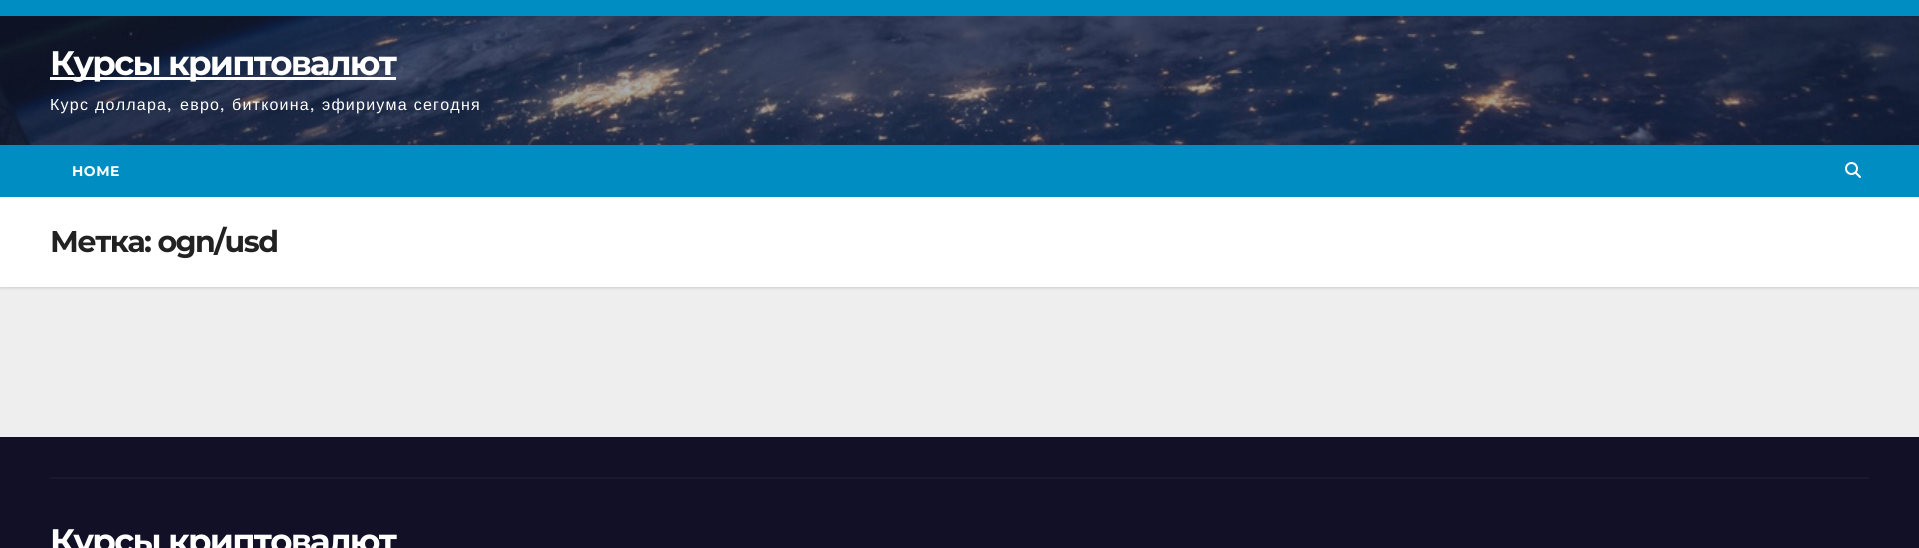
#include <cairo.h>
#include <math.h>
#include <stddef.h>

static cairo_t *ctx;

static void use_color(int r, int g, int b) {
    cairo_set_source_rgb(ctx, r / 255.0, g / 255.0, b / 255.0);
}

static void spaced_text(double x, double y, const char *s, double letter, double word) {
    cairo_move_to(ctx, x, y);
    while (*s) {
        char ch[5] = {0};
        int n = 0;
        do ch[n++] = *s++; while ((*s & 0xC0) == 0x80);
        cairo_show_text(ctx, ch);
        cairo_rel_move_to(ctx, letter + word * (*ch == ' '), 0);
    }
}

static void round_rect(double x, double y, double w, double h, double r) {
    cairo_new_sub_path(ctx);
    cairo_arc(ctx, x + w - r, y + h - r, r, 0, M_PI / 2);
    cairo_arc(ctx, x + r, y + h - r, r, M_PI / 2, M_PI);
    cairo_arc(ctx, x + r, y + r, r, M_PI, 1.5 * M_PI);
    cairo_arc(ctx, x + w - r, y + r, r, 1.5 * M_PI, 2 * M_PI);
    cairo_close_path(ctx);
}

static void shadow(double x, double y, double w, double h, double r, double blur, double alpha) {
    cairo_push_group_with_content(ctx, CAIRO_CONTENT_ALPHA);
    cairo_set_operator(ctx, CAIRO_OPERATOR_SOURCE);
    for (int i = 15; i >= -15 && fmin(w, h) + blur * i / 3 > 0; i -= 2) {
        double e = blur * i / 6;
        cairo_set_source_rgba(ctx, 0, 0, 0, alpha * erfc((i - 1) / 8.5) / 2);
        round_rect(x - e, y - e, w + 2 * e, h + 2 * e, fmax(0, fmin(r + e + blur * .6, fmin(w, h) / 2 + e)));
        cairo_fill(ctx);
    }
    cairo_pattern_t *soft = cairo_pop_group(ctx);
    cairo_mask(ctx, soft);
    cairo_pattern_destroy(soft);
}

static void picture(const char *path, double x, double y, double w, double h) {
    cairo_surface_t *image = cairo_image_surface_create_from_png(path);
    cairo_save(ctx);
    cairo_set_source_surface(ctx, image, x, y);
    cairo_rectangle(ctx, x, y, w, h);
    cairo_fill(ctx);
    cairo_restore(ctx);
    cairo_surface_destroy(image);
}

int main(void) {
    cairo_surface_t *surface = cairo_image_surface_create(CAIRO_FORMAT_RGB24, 1919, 548);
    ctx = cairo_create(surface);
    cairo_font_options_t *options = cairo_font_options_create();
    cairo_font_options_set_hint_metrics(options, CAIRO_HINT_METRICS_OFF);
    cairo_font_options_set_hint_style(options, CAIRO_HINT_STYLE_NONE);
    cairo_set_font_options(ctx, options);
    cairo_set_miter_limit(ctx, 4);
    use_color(238, 238, 238);
    cairo_paint(ctx);
    use_color(0, 142, 194);
    cairo_rectangle(ctx, 0, 0, 1919, 16);
    cairo_fill(ctx);
    picture("img1.png", 0, 16, 1919, 129);
    use_color(255, 255, 255);
    cairo_rectangle(ctx, 50, 77, 346, 3);
    cairo_fill(ctx);
    cairo_select_font_face(ctx, "Montserrat", CAIRO_FONT_SLANT_NORMAL, CAIRO_FONT_WEIGHT_BOLD);
    cairo_set_font_size(ctx, 34);
    spaced_text(50, 75, "Курсы криптовалют", -1.75, 0);
    cairo_select_font_face(ctx, "Liberation Sans", CAIRO_FONT_SLANT_NORMAL, CAIRO_FONT_WEIGHT_NORMAL);
    cairo_set_font_size(ctx, 16);
    spaced_text(50, 110, "Курс доллара", 1.25, 0);
    cairo_select_font_face(ctx, "Work Sans", CAIRO_FONT_SLANT_NORMAL, CAIRO_FONT_WEIGHT_NORMAL);
    spaced_text(167, 110, ",", 1.25, 0);
    cairo_select_font_face(ctx, "Liberation Sans", CAIRO_FONT_SLANT_NORMAL, CAIRO_FONT_WEIGHT_NORMAL);
    spaced_text(180, 110, "евро", 1.25, 0);
    cairo_select_font_face(ctx, "Work Sans", CAIRO_FONT_SLANT_NORMAL, CAIRO_FONT_WEIGHT_NORMAL);
    spaced_text(220, 110, ",", 1.25, 0);
    cairo_select_font_face(ctx, "Liberation Sans", CAIRO_FONT_SLANT_NORMAL, CAIRO_FONT_WEIGHT_NORMAL);
    spaced_text(232, 110, "биткоина", 1.25, 0);
    cairo_select_font_face(ctx, "Work Sans", CAIRO_FONT_SLANT_NORMAL, CAIRO_FONT_WEIGHT_NORMAL);
    spaced_text(310, 110, ",", 1.25, 0);
    cairo_select_font_face(ctx, "Liberation Sans", CAIRO_FONT_SLANT_NORMAL, CAIRO_FONT_WEIGHT_NORMAL);
    spaced_text(322, 110, "эфириума сегодня", 1.25, 0);
    use_color(0, 0, 0);
    shadow(0, 198, 1919, 90, 0, 1.5, 0.15);
    use_color(0, 142, 194);
    cairo_rectangle(ctx, 0, 145, 1919, 52);
    cairo_fill(ctx);
    cairo_select_font_face(ctx, "Montserrat", CAIRO_FONT_SLANT_NORMAL, CAIRO_FONT_WEIGHT_BOLD);
    cairo_set_font_size(ctx, 14);
    use_color(255, 255, 255);
    spaced_text(72, 176, "HOME", 0.5, 0);
    picture("img2.png", 1845, 162, 16, 16);
    cairo_rectangle(ctx, 0, 197, 1919, 90);
    cairo_fill(ctx);
    cairo_set_font_size(ctx, 30);
    use_color(34, 34, 34);
    spaced_text(50, 252, "Метка: ogn/usd", -1.5, 0);
    use_color(18, 16, 38);
    cairo_rectangle(ctx, 0, 437, 1919, 111);
    cairo_fill(ctx);
    use_color(26, 24, 46);
    cairo_rectangle(ctx, 50, 477, 1819, 2);
    cairo_fill(ctx);
    cairo_set_font_size(ctx, 34);
    use_color(255, 255, 255);
    spaced_text(50, 553, "Курсы криптовалют", -1.75, 0);
    cairo_surface_write_to_png(surface, "result.png");
    cairo_font_options_destroy(options);
    cairo_destroy(ctx);
    cairo_surface_destroy(surface);
    return 0;
}
